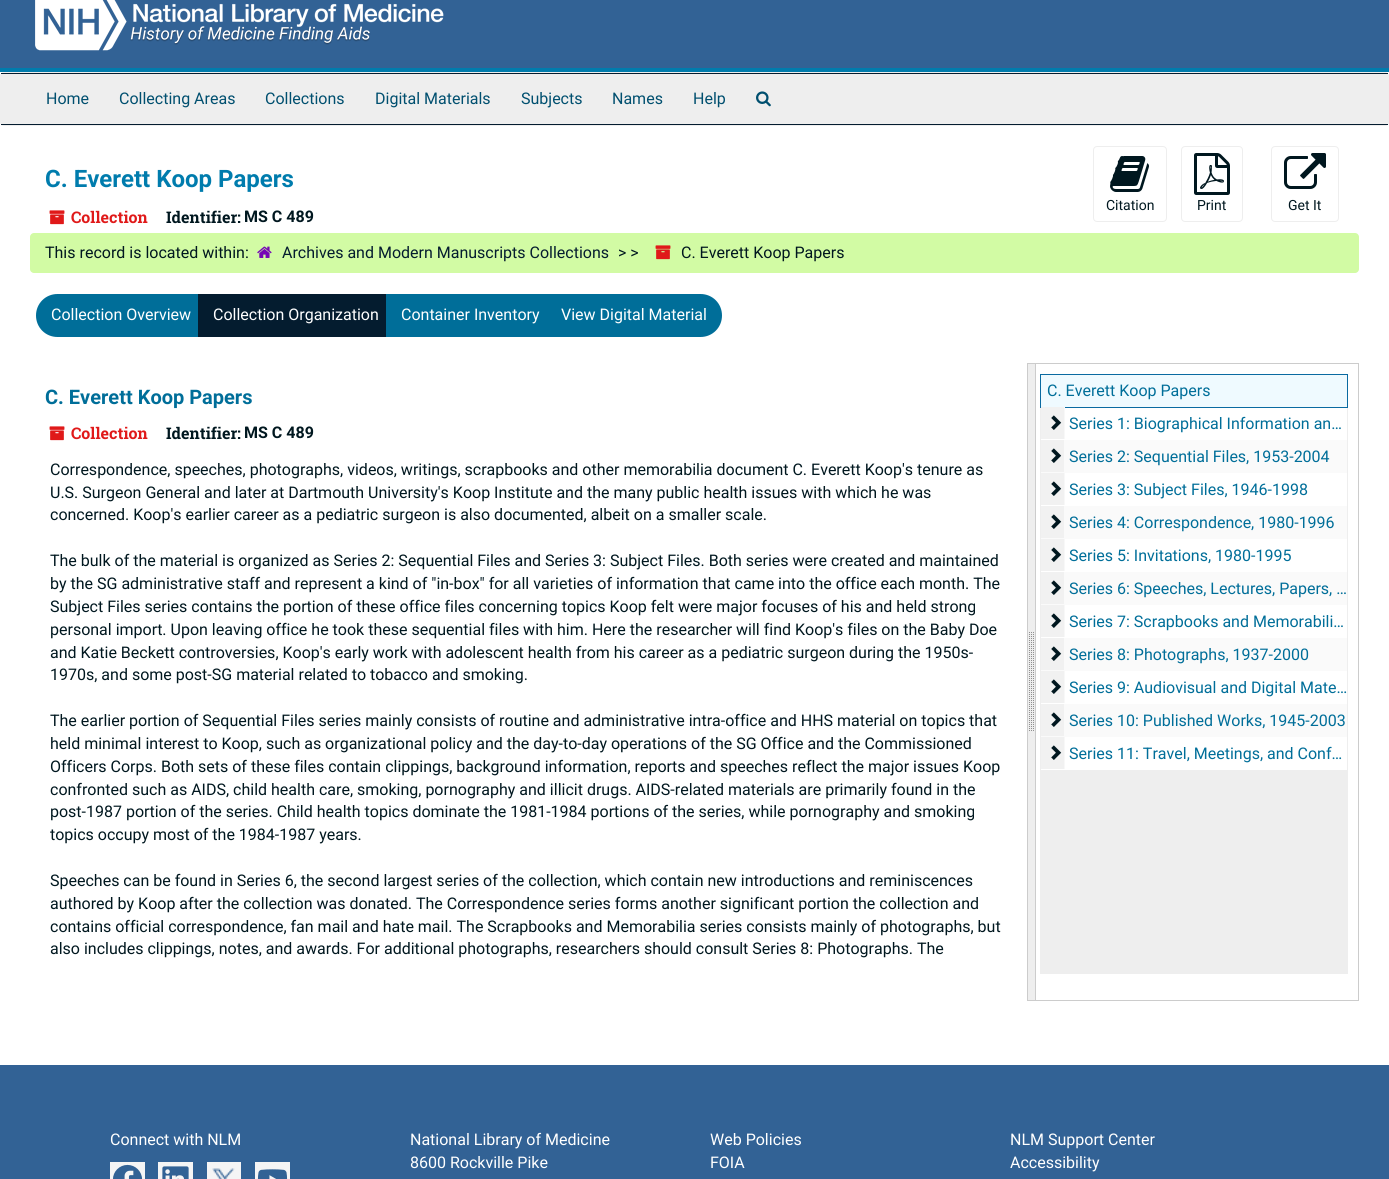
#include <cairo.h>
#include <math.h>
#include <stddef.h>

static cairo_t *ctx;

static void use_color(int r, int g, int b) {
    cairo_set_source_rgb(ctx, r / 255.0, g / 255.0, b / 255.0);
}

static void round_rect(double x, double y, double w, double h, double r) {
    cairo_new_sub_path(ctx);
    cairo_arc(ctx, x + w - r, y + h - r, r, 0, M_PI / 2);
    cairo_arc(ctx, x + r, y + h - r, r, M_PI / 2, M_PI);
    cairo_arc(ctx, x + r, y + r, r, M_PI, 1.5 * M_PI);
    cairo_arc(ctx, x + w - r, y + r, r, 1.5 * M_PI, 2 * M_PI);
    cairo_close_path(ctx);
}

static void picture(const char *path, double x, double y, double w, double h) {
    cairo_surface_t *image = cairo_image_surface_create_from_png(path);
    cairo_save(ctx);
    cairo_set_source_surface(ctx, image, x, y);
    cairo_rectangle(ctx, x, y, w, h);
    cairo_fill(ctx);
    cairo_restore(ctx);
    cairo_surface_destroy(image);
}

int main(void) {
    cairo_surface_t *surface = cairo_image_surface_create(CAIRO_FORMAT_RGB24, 1389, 1179);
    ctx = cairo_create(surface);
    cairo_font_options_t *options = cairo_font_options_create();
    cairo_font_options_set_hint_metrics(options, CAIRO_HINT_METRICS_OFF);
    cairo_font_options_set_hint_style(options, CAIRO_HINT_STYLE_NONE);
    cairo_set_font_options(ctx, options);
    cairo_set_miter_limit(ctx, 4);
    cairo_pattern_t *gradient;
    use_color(255, 255, 255);
    cairo_paint(ctx);
    use_color(50, 98, 149);
    cairo_rectangle(ctx, 0, 0, 1389, 68);
    cairo_fill(ctx);
    use_color(0, 124, 173);
    cairo_rectangle(ctx, 0, 68, 1389, 4);
    cairo_fill(ctx);
    picture("img1.png", 35, 0, 409, 51);
    use_color(238, 238, 238);
    round_rect(0.5, 72.5, 1388, 53, 3.5);
    cairo_fill_preserve(ctx);
    cairo_set_line_width(ctx, 1);
    cairo_stroke(ctx);
    use_color(4, 28, 47);
    cairo_rectangle(ctx, 1, 73, 1387, 1);
    cairo_fill(ctx);
    cairo_rectangle(ctx, 1, 124, 1387, 1);
    cairo_fill(ctx);
    cairo_select_font_face(ctx, "Roboto", CAIRO_FONT_SLANT_NORMAL, CAIRO_FONT_WEIGHT_NORMAL);
    cairo_set_font_size(ctx, 16);
    use_color(0, 79, 111);
    cairo_move_to(ctx, 46, 104);
    cairo_show_text(ctx, "Home");
    cairo_move_to(ctx, 119, 104);
    cairo_show_text(ctx, "Collecting Areas");
    cairo_move_to(ctx, 265, 104);
    cairo_show_text(ctx, "Collections");
    cairo_move_to(ctx, 375, 104);
    cairo_show_text(ctx, "Digital Materials");
    cairo_move_to(ctx, 521, 104);
    cairo_show_text(ctx, "Subjects");
    cairo_move_to(ctx, 612, 104);
    cairo_show_text(ctx, "Names");
    cairo_move_to(ctx, 693, 104);
    cairo_show_text(ctx, "Help");
    picture("img2.png", 756, 91, 15, 16);
    cairo_select_font_face(ctx, "Roboto", CAIRO_FONT_SLANT_NORMAL, CAIRO_FONT_WEIGHT_BOLD);
    cairo_set_font_size(ctx, 24);
    use_color(0, 124, 173);
    cairo_move_to(ctx, 45, 187);
    cairo_show_text(ctx, "C. Everett Koop Papers");
    picture("img3.png", 49, 210, 16, 15);
    cairo_select_font_face(ctx, "Roboto Slab", CAIRO_FONT_SLANT_NORMAL, CAIRO_FONT_WEIGHT_BOLD);
    cairo_set_font_size(ctx, 16);
    use_color(224, 25, 25);
    cairo_move_to(ctx, 71, 223);
    cairo_show_text(ctx, "Collection");
    use_color(0, 23, 31);
    cairo_move_to(ctx, 166, 223);
    cairo_show_text(ctx, "Identifier:");
    cairo_select_font_face(ctx, "Roboto", CAIRO_FONT_SLANT_NORMAL, CAIRO_FONT_WEIGHT_BOLD);
    cairo_move_to(ctx, 244, 222);
    cairo_show_text(ctx, "MS C 489");
    round_rect(1093.5, 146.5, 73, 75, 3.5);
    use_color(238, 238, 238);
    cairo_stroke(ctx);
    picture("img4.png", 1110, 156, 39, 36);
    cairo_select_font_face(ctx, "Roboto", CAIRO_FONT_SLANT_NORMAL, CAIRO_FONT_WEIGHT_NORMAL);
    cairo_set_font_size(ctx, 14);
    use_color(0, 23, 31);
    cairo_move_to(ctx, 1106, 210);
    cairo_show_text(ctx, "Citation");
    round_rect(1181.5, 146.5, 61, 75, 3.5);
    use_color(238, 238, 238);
    cairo_stroke(ctx);
    picture("img5.png", 1194, 153, 36, 42);
    use_color(0, 23, 31);
    cairo_move_to(ctx, 1197, 210);
    cairo_show_text(ctx, "Print");
    round_rect(1271.5, 146.5, 67, 75, 3.5);
    use_color(238, 238, 238);
    cairo_stroke(ctx);
    picture("img6.png", 1284, 153, 42, 36);
    use_color(0, 23, 31);
    cairo_move_to(ctx, 1288, 210);
    cairo_show_text(ctx, "Get It");
    use_color(210, 251, 164);
    round_rect(30, 233, 1329, 40, 4);
    cairo_fill(ctx);
    cairo_set_font_size(ctx, 16);
    use_color(0, 23, 31);
    cairo_move_to(ctx, 45, 258);
    cairo_show_text(ctx, "This record is located within:");
    picture("img7.png", 257, 246, 15, 12);
    use_color(4, 28, 47);
    cairo_move_to(ctx, 282, 258);
    cairo_show_text(ctx, "Archives and Modern Manuscripts Collections");
    use_color(0, 23, 31);
    cairo_move_to(ctx, 618, 258);
    cairo_show_text(ctx, "> >");
    picture("img8.png", 655, 245, 16, 15);
    cairo_move_to(ctx, 681, 258);
    cairo_show_text(ctx, "C. Everett Koop Papers");
    use_color(0, 110, 153);
    cairo_new_path(ctx);
    cairo_move_to(ctx, 57.5, 294);
    cairo_line_to(ctx, 206, 294);
    cairo_line_to(ctx, 206, 337);
    cairo_line_to(ctx, 57.5, 337);
    cairo_curve_to(ctx, 45.5, 337, 36, 327.5, 36, 315.5);
    cairo_curve_to(ctx, 36, 303.5, 45.5, 294, 57.5, 294);
    cairo_close_path(ctx);
    cairo_fill(ctx);
    use_color(255, 255, 255);
    cairo_move_to(ctx, 51, 320);
    cairo_show_text(ctx, "Collection Overview");
    use_color(4, 28, 47);
    cairo_rectangle(ctx, 198, 294, 188, 43);
    cairo_fill(ctx);
    use_color(255, 255, 255);
    cairo_move_to(ctx, 213, 320);
    cairo_show_text(ctx, "Collection Organization");
    use_color(0, 110, 153);
    cairo_rectangle(ctx, 386, 294, 160, 43);
    cairo_fill(ctx);
    use_color(255, 255, 255);
    cairo_move_to(ctx, 401, 320);
    cairo_show_text(ctx, "Container Inventory");
    use_color(0, 110, 153);
    cairo_new_path(ctx);
    cairo_move_to(ctx, 546, 294);
    cairo_line_to(ctx, 700.5, 294);
    cairo_curve_to(ctx, 712.5, 294, 722, 303.5, 722, 315.5);
    cairo_curve_to(ctx, 722, 327.5, 712.5, 337, 700.5, 337);
    cairo_line_to(ctx, 546, 337);
    cairo_close_path(ctx);
    cairo_fill(ctx);
    use_color(255, 255, 255);
    cairo_move_to(ctx, 561, 320);
    cairo_show_text(ctx, "View Digital Material");
    cairo_select_font_face(ctx, "Roboto", CAIRO_FONT_SLANT_NORMAL, CAIRO_FONT_WEIGHT_BOLD);
    cairo_set_font_size(ctx, 20);
    use_color(0, 110, 153);
    cairo_move_to(ctx, 45, 404);
    cairo_show_text(ctx, "C. Everett Koop Papers");
    picture("img3.png", 49, 426, 16, 15);
    cairo_select_font_face(ctx, "Roboto Slab", CAIRO_FONT_SLANT_NORMAL, CAIRO_FONT_WEIGHT_BOLD);
    cairo_set_font_size(ctx, 16);
    use_color(224, 25, 25);
    cairo_move_to(ctx, 71, 439);
    cairo_show_text(ctx, "Collection");
    use_color(0, 23, 31);
    cairo_move_to(ctx, 166, 439);
    cairo_show_text(ctx, "Identifier:");
    cairo_select_font_face(ctx, "Roboto", CAIRO_FONT_SLANT_NORMAL, CAIRO_FONT_WEIGHT_BOLD);
    cairo_move_to(ctx, 244, 438);
    cairo_show_text(ctx, "MS C 489");
    cairo_select_font_face(ctx, "Roboto", CAIRO_FONT_SLANT_NORMAL, CAIRO_FONT_WEIGHT_NORMAL);
    cairo_move_to(ctx, 50, 475);
    cairo_show_text(ctx, "Correspondence, speeches, photographs, videos, writings, scrapbooks and other memorabilia document C. Everett Koop's tenure as");
    cairo_move_to(ctx, 50, 498);
    cairo_show_text(ctx, "U.S. Surgeon General and later at Dartmouth University's Koop Institute and the many public health issues with which he was");
    cairo_move_to(ctx, 50, 520);
    cairo_show_text(ctx, "concerned. Koop's earlier career as a pediatric surgeon is also documented, albeit on a smaller scale.");
    cairo_move_to(ctx, 50, 566);
    cairo_show_text(ctx, "The bulk of the material is organized as Series 2: Sequential Files and Series 3: Subject Files. Both series were created and maintained");
    cairo_move_to(ctx, 50, 589);
    cairo_show_text(ctx, "by the SG administrative staff and represent a kind of \"in-box\" for all varieties of information that came into the office each month. The");
    cairo_move_to(ctx, 50, 612);
    cairo_show_text(ctx, "Subject Files series contains the portion of these office files concerning topics Koop felt were major focuses of his and held strong");
    cairo_move_to(ctx, 50, 635);
    cairo_show_text(ctx, "personal import. Upon leaving office he took these sequential files with him. Here the researcher will find Koop's files on the Baby Doe");
    cairo_move_to(ctx, 50, 658);
    cairo_show_text(ctx, "and Katie Beckett controversies, Koop's early work with adolescent health from his career as a pediatric surgeon during the 1950s-");
    cairo_move_to(ctx, 50, 680);
    cairo_show_text(ctx, "1970s, and some post-SG material related to tobacco and smoking.");
    cairo_move_to(ctx, 50, 726);
    cairo_show_text(ctx, "The earlier portion of Sequential Files series mainly consists of routine and administrative intra-office and HHS material on topics that");
    cairo_move_to(ctx, 50, 749);
    cairo_show_text(ctx, "held minimal interest to Koop, such as organizational policy and the day-to-day operations of the SG Office and the Commissioned");
    cairo_move_to(ctx, 50, 772);
    cairo_show_text(ctx, "Officers Corps. Both sets of these files contain clippings, background information, reports and speeches reflect the major issues Koop");
    cairo_move_to(ctx, 50, 795);
    cairo_show_text(ctx, "confronted such as AIDS, child health care, smoking, pornography and illicit drugs. AIDS-related materials are primarily found in the");
    cairo_move_to(ctx, 50, 817);
    cairo_show_text(ctx, "post-1987 portion of the series. Child health topics dominate the 1981-1984 portions of the series, while pornography and smoking");
    cairo_move_to(ctx, 50, 840);
    cairo_show_text(ctx, "topics occupy most of the 1984-1987 years.");
    cairo_move_to(ctx, 50, 886);
    cairo_show_text(ctx, "Speeches can be found in Series 6, the second largest series of the collection, which contain new introductions and reminiscences");
    cairo_move_to(ctx, 50, 909);
    cairo_show_text(ctx, "authored by Koop after the collection was donated. The Correspondence series forms another significant portion the collection and");
    cairo_move_to(ctx, 50, 932);
    cairo_show_text(ctx, "contains official correspondence, fan mail and hate mail. The Scrapbooks and Memorabilia series consists mainly of photographs, but");
    cairo_move_to(ctx, 50, 954);
    cairo_show_text(ctx, "also includes clippings, notes, and awards. For additional photographs, researchers should consult Series 8: Photographs. The");
    cairo_rectangle(ctx, 1027.5, 363.5, 331, 637);
    use_color(204, 204, 204);
    cairo_stroke(ctx);
    use_color(238, 238, 238);
    cairo_rectangle(ctx, 1028, 364, 7, 636);
    cairo_fill(ctx);
    picture("img9.png", 1029, 632, 5, 99);
    use_color(204, 204, 204);
    cairo_rectangle(ctx, 1035, 364, 1, 636);
    cairo_fill(ctx);
    use_color(238, 238, 238);
    cairo_rectangle(ctx, 1040, 408, 308, 566);
    cairo_fill(ctx);
    cairo_rectangle(ctx, 1040.5, 374.5, 307, 33);
    use_color(10, 106, 161);
    cairo_stroke(ctx);
    use_color(239, 250, 255);
    cairo_rectangle(ctx, 1041, 375, 306, 32);
    cairo_fill(ctx);
    use_color(0, 110, 153);
    cairo_move_to(ctx, 1047, 396);
    cairo_show_text(ctx, "C. Everett Koop Papers");
    use_color(255, 255, 255);
    cairo_rectangle(ctx, 1041, 408, 306, 32);
    cairo_fill(ctx);
    gradient = cairo_pattern_create_linear(1041, 423, 1089, 423);
    cairo_pattern_add_color_stop_rgba(gradient, 0, 0.945, 0.945, 0.945, 1);
    cairo_pattern_add_color_stop_rgba(gradient, 0.48, 0.945, 0.945, 0.945, 1);
    cairo_pattern_add_color_stop_rgba(gradient, 0.5, 1, 1, 1, 1);
    cairo_pattern_add_color_stop_rgba(gradient, 0.5, 0.945, 0.945, 0.945, 1);
    cairo_pattern_add_color_stop_rgba(gradient, 0.98, 0.945, 0.945, 0.945, 1);
    cairo_pattern_add_color_stop_rgba(gradient, 1, 1, 1, 1, 1);
    cairo_set_source(ctx, gradient);
    cairo_pattern_destroy(gradient);
    cairo_rectangle(ctx, 1041, 407, 24, 32);
    cairo_fill(ctx);
    picture("img10.png", 1051, 415, 11, 15);
    use_color(0, 110, 153);
    cairo_move_to(ctx, 1069, 429);
    cairo_show_text(ctx, "Series 1: Biographical Information an…");
    use_color(250, 250, 250);
    cairo_rectangle(ctx, 1041, 440, 306, 33);
    cairo_fill(ctx);
    gradient = cairo_pattern_create_linear(1041, 456, 1089, 456);
    cairo_pattern_add_color_stop_rgba(gradient, 0, 0.945, 0.945, 0.945, 1);
    cairo_pattern_add_color_stop_rgba(gradient, 0.48, 0.945, 0.945, 0.945, 1);
    cairo_pattern_add_color_stop_rgba(gradient, 0.5, 1, 1, 1, 1);
    cairo_pattern_add_color_stop_rgba(gradient, 0.5, 0.945, 0.945, 0.945, 1);
    cairo_pattern_add_color_stop_rgba(gradient, 0.98, 0.945, 0.945, 0.945, 1);
    cairo_pattern_add_color_stop_rgba(gradient, 1, 1, 1, 1, 1);
    cairo_set_source(ctx, gradient);
    cairo_pattern_destroy(gradient);
    cairo_rectangle(ctx, 1041, 440, 23, 32);
    cairo_fill(ctx);
    picture("img10.png", 1051, 448, 11, 15);
    use_color(0, 110, 153);
    cairo_move_to(ctx, 1069, 462);
    cairo_show_text(ctx, "Series 2: Sequential Files, 1953-2004");
    use_color(255, 255, 255);
    cairo_rectangle(ctx, 1041, 473, 306, 33);
    cairo_fill(ctx);
    gradient = cairo_pattern_create_linear(1041, 489, 1089, 489);
    cairo_pattern_add_color_stop_rgba(gradient, 0, 0.945, 0.945, 0.945, 1);
    cairo_pattern_add_color_stop_rgba(gradient, 0.48, 0.945, 0.945, 0.945, 1);
    cairo_pattern_add_color_stop_rgba(gradient, 0.5, 1, 1, 1, 1);
    cairo_pattern_add_color_stop_rgba(gradient, 0.5, 0.945, 0.945, 0.945, 1);
    cairo_pattern_add_color_stop_rgba(gradient, 0.98, 0.945, 0.945, 0.945, 1);
    cairo_pattern_add_color_stop_rgba(gradient, 1, 1, 1, 1, 1);
    cairo_set_source(ctx, gradient);
    cairo_pattern_destroy(gradient);
    cairo_rectangle(ctx, 1041, 473, 24, 32);
    cairo_fill(ctx);
    picture("img10.png", 1051, 481, 11, 15);
    use_color(0, 110, 153);
    cairo_move_to(ctx, 1069, 495);
    cairo_show_text(ctx, "Series 3: Subject Files, 1946-1998");
    use_color(250, 250, 250);
    cairo_rectangle(ctx, 1041, 506, 306, 33);
    cairo_fill(ctx);
    gradient = cairo_pattern_create_linear(1041, 522, 1089, 522);
    cairo_pattern_add_color_stop_rgba(gradient, 0, 0.945, 0.945, 0.945, 1);
    cairo_pattern_add_color_stop_rgba(gradient, 0.48, 0.945, 0.945, 0.945, 1);
    cairo_pattern_add_color_stop_rgba(gradient, 0.5, 1, 1, 1, 1);
    cairo_pattern_add_color_stop_rgba(gradient, 0.5, 0.945, 0.945, 0.945, 1);
    cairo_pattern_add_color_stop_rgba(gradient, 0.98, 0.945, 0.945, 0.945, 1);
    cairo_pattern_add_color_stop_rgba(gradient, 1, 1, 1, 1, 1);
    cairo_set_source(ctx, gradient);
    cairo_pattern_destroy(gradient);
    cairo_rectangle(ctx, 1041, 506, 23, 32);
    cairo_fill(ctx);
    picture("img10.png", 1051, 514, 11, 15);
    use_color(0, 110, 153);
    cairo_move_to(ctx, 1069, 528);
    cairo_show_text(ctx, "Series 4: Correspondence, 1980-1996");
    use_color(255, 255, 255);
    cairo_rectangle(ctx, 1041, 539, 306, 33);
    cairo_fill(ctx);
    gradient = cairo_pattern_create_linear(1041, 555, 1089, 555);
    cairo_pattern_add_color_stop_rgba(gradient, 0, 0.945, 0.945, 0.945, 1);
    cairo_pattern_add_color_stop_rgba(gradient, 0.48, 0.945, 0.945, 0.945, 1);
    cairo_pattern_add_color_stop_rgba(gradient, 0.5, 1, 1, 1, 1);
    cairo_pattern_add_color_stop_rgba(gradient, 0.5, 0.945, 0.945, 0.945, 1);
    cairo_pattern_add_color_stop_rgba(gradient, 0.98, 0.945, 0.945, 0.945, 1);
    cairo_pattern_add_color_stop_rgba(gradient, 1, 1, 1, 1, 1);
    cairo_set_source(ctx, gradient);
    cairo_pattern_destroy(gradient);
    cairo_rectangle(ctx, 1041, 539, 24, 32);
    cairo_fill(ctx);
    picture("img10.png", 1051, 547, 11, 15);
    use_color(0, 110, 153);
    cairo_move_to(ctx, 1069, 561);
    cairo_show_text(ctx, "Series 5: Invitations, 1980-1995");
    use_color(250, 250, 250);
    cairo_rectangle(ctx, 1041, 572, 306, 33);
    cairo_fill(ctx);
    gradient = cairo_pattern_create_linear(1041, 588, 1089, 588);
    cairo_pattern_add_color_stop_rgba(gradient, 0, 0.945, 0.945, 0.945, 1);
    cairo_pattern_add_color_stop_rgba(gradient, 0.48, 0.945, 0.945, 0.945, 1);
    cairo_pattern_add_color_stop_rgba(gradient, 0.5, 1, 1, 1, 1);
    cairo_pattern_add_color_stop_rgba(gradient, 0.5, 0.945, 0.945, 0.945, 1);
    cairo_pattern_add_color_stop_rgba(gradient, 0.98, 0.945, 0.945, 0.945, 1);
    cairo_pattern_add_color_stop_rgba(gradient, 1, 1, 1, 1, 1);
    cairo_set_source(ctx, gradient);
    cairo_pattern_destroy(gradient);
    cairo_rectangle(ctx, 1041, 572, 23, 32);
    cairo_fill(ctx);
    picture("img10.png", 1051, 580, 11, 15);
    use_color(0, 110, 153);
    cairo_move_to(ctx, 1069, 594);
    cairo_show_text(ctx, "Series 6: Speeches, Lectures, Papers, …");
    use_color(255, 255, 255);
    cairo_rectangle(ctx, 1041, 605, 306, 33);
    cairo_fill(ctx);
    gradient = cairo_pattern_create_linear(1041, 621, 1089, 621);
    cairo_pattern_add_color_stop_rgba(gradient, 0, 0.945, 0.945, 0.945, 1);
    cairo_pattern_add_color_stop_rgba(gradient, 0.48, 0.945, 0.945, 0.945, 1);
    cairo_pattern_add_color_stop_rgba(gradient, 0.5, 1, 1, 1, 1);
    cairo_pattern_add_color_stop_rgba(gradient, 0.5, 0.945, 0.945, 0.945, 1);
    cairo_pattern_add_color_stop_rgba(gradient, 0.98, 0.945, 0.945, 0.945, 1);
    cairo_pattern_add_color_stop_rgba(gradient, 1, 1, 1, 1, 1);
    cairo_set_source(ctx, gradient);
    cairo_pattern_destroy(gradient);
    cairo_rectangle(ctx, 1041, 605, 24, 32);
    cairo_fill(ctx);
    picture("img10.png", 1051, 613, 11, 15);
    use_color(0, 110, 153);
    cairo_move_to(ctx, 1069, 627);
    cairo_show_text(ctx, "Series 7: Scrapbooks and Memorabili…");
    use_color(250, 250, 250);
    cairo_rectangle(ctx, 1041, 638, 306, 33);
    cairo_fill(ctx);
    gradient = cairo_pattern_create_linear(1041, 654, 1089, 654);
    cairo_pattern_add_color_stop_rgba(gradient, 0, 0.945, 0.945, 0.945, 1);
    cairo_pattern_add_color_stop_rgba(gradient, 0.48, 0.945, 0.945, 0.945, 1);
    cairo_pattern_add_color_stop_rgba(gradient, 0.5, 1, 1, 1, 1);
    cairo_pattern_add_color_stop_rgba(gradient, 0.5, 0.945, 0.945, 0.945, 1);
    cairo_pattern_add_color_stop_rgba(gradient, 0.98, 0.945, 0.945, 0.945, 1);
    cairo_pattern_add_color_stop_rgba(gradient, 1, 1, 1, 1, 1);
    cairo_set_source(ctx, gradient);
    cairo_pattern_destroy(gradient);
    cairo_rectangle(ctx, 1041, 638, 23, 32);
    cairo_fill(ctx);
    picture("img10.png", 1051, 646, 11, 15);
    use_color(0, 110, 153);
    cairo_move_to(ctx, 1069, 660);
    cairo_show_text(ctx, "Series 8: Photographs, 1937-2000");
    use_color(255, 255, 255);
    cairo_rectangle(ctx, 1041, 671, 306, 33);
    cairo_fill(ctx);
    gradient = cairo_pattern_create_linear(1041, 687, 1089, 687);
    cairo_pattern_add_color_stop_rgba(gradient, 0, 0.945, 0.945, 0.945, 1);
    cairo_pattern_add_color_stop_rgba(gradient, 0.48, 0.945, 0.945, 0.945, 1);
    cairo_pattern_add_color_stop_rgba(gradient, 0.5, 1, 1, 1, 1);
    cairo_pattern_add_color_stop_rgba(gradient, 0.5, 0.945, 0.945, 0.945, 1);
    cairo_pattern_add_color_stop_rgba(gradient, 0.98, 0.945, 0.945, 0.945, 1);
    cairo_pattern_add_color_stop_rgba(gradient, 1, 1, 1, 1, 1);
    cairo_set_source(ctx, gradient);
    cairo_pattern_destroy(gradient);
    cairo_rectangle(ctx, 1041, 671, 24, 32);
    cairo_fill(ctx);
    picture("img10.png", 1051, 679, 11, 15);
    use_color(0, 110, 153);
    cairo_move_to(ctx, 1069, 693);
    cairo_show_text(ctx, "Series 9: Audiovisual and Digital Mate…");
    use_color(250, 250, 250);
    cairo_rectangle(ctx, 1041, 704, 306, 33);
    cairo_fill(ctx);
    gradient = cairo_pattern_create_linear(1041, 720, 1089, 720);
    cairo_pattern_add_color_stop_rgba(gradient, 0, 0.945, 0.945, 0.945, 1);
    cairo_pattern_add_color_stop_rgba(gradient, 0.48, 0.945, 0.945, 0.945, 1);
    cairo_pattern_add_color_stop_rgba(gradient, 0.5, 1, 1, 1, 1);
    cairo_pattern_add_color_stop_rgba(gradient, 0.5, 0.945, 0.945, 0.945, 1);
    cairo_pattern_add_color_stop_rgba(gradient, 0.98, 0.945, 0.945, 0.945, 1);
    cairo_pattern_add_color_stop_rgba(gradient, 1, 1, 1, 1, 1);
    cairo_set_source(ctx, gradient);
    cairo_pattern_destroy(gradient);
    cairo_rectangle(ctx, 1041, 704, 23, 32);
    cairo_fill(ctx);
    picture("img10.png", 1051, 712, 11, 15);
    use_color(0, 110, 153);
    cairo_move_to(ctx, 1069, 726);
    cairo_show_text(ctx, "Series 10: Published Works, 1945-2003");
    use_color(255, 255, 255);
    cairo_rectangle(ctx, 1041, 737, 306, 33);
    cairo_fill(ctx);
    gradient = cairo_pattern_create_linear(1041, 753, 1089, 753);
    cairo_pattern_add_color_stop_rgba(gradient, 0, 0.945, 0.945, 0.945, 1);
    cairo_pattern_add_color_stop_rgba(gradient, 0.48, 0.945, 0.945, 0.945, 1);
    cairo_pattern_add_color_stop_rgba(gradient, 0.5, 1, 1, 1, 1);
    cairo_pattern_add_color_stop_rgba(gradient, 0.5, 0.945, 0.945, 0.945, 1);
    cairo_pattern_add_color_stop_rgba(gradient, 0.98, 0.945, 0.945, 0.945, 1);
    cairo_pattern_add_color_stop_rgba(gradient, 1, 1, 1, 1, 1);
    cairo_set_source(ctx, gradient);
    cairo_pattern_destroy(gradient);
    cairo_rectangle(ctx, 1041, 737, 24, 32);
    cairo_fill(ctx);
    picture("img10.png", 1051, 745, 11, 15);
    use_color(0, 110, 153);
    cairo_move_to(ctx, 1069, 759);
    cairo_show_text(ctx, "Series 11: Travel, Meetings, and Conf…");
    use_color(50, 98, 149);
    cairo_rectangle(ctx, 0, 1065, 1389, 114);
    cairo_fill(ctx);
    use_color(255, 255, 255);
    cairo_move_to(ctx, 110, 1145);
    cairo_show_text(ctx, "Connect with NLM");
    use_color(245, 245, 245);
    cairo_rectangle(ctx, 110, 1162, 35, 17);
    cairo_fill(ctx);
    picture("img11.png", 113, 1164, 30, 15);
    cairo_rectangle(ctx, 158, 1162, 35, 17);
    cairo_fill(ctx);
    picture("img12.png", 162, 1166, 27, 13);
    cairo_rectangle(ctx, 207, 1162, 34, 17);
    cairo_fill(ctx);
    picture("img13.png", 212, 1168, 23, 11);
    cairo_rectangle(ctx, 255, 1162, 35, 17);
    cairo_fill(ctx);
    picture("img14.png", 257, 1169, 31, 10);
    use_color(255, 255, 255);
    cairo_move_to(ctx, 410, 1145);
    cairo_show_text(ctx, "National Library of Medicine");
    cairo_move_to(ctx, 410, 1168);
    cairo_show_text(ctx, "8600 Rockville Pike");
    cairo_move_to(ctx, 710, 1145);
    cairo_show_text(ctx, "Web Policies");
    cairo_move_to(ctx, 710, 1168);
    cairo_show_text(ctx, "FOIA");
    cairo_move_to(ctx, 1010, 1145);
    cairo_show_text(ctx, "NLM Support Center");
    cairo_move_to(ctx, 1010, 1168);
    cairo_show_text(ctx, "Accessibility");
    cairo_surface_write_to_png(surface, "result.png");
    cairo_font_options_destroy(options);
    cairo_destroy(ctx);
    cairo_surface_destroy(surface);
    return 0;
}
